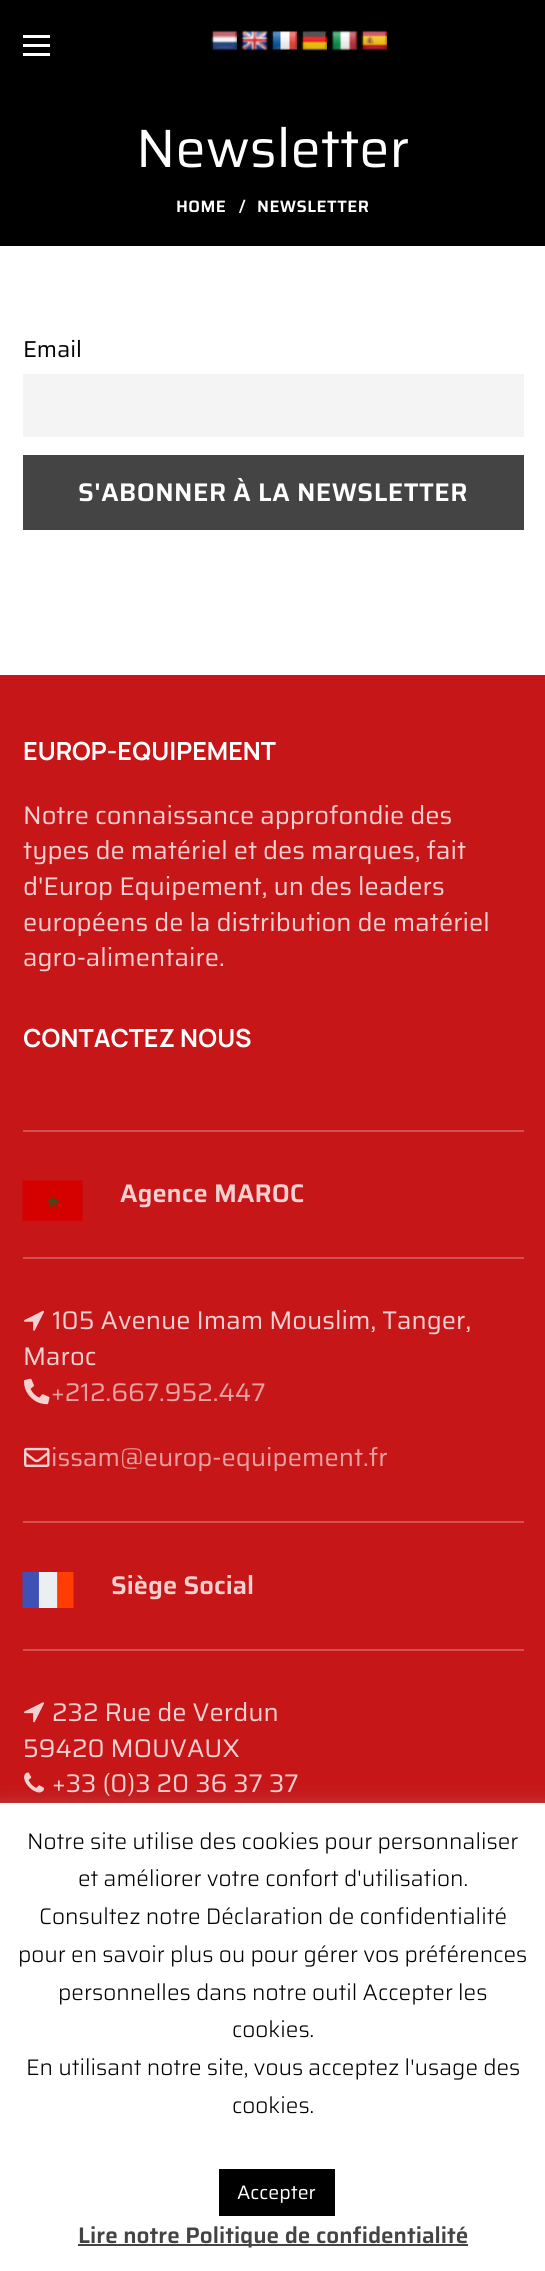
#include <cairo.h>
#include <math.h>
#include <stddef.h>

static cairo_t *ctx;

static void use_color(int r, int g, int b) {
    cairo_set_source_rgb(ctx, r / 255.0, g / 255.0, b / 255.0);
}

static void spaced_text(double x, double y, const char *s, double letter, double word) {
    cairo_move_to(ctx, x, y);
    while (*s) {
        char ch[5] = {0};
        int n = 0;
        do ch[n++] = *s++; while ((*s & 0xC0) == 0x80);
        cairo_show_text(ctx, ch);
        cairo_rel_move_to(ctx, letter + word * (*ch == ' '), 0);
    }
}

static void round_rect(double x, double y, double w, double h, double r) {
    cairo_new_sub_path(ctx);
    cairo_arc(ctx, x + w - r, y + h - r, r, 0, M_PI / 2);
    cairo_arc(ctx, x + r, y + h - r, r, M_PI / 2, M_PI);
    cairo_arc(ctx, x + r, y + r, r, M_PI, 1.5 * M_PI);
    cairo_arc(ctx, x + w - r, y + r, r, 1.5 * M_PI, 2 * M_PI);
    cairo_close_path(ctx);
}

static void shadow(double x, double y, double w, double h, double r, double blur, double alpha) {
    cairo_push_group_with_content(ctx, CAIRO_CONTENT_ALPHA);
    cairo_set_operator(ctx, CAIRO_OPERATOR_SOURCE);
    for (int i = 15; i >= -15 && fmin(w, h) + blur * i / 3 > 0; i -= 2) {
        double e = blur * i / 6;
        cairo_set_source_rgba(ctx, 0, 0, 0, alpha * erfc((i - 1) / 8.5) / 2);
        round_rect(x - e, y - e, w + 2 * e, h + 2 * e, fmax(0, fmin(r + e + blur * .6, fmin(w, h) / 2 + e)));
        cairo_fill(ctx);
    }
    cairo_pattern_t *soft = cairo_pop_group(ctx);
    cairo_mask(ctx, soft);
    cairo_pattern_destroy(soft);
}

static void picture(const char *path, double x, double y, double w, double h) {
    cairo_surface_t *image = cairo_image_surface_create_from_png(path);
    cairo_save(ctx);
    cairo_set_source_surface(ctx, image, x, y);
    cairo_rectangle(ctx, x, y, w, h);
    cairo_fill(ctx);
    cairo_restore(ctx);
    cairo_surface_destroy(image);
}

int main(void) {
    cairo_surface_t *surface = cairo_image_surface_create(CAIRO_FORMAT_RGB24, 545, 2271);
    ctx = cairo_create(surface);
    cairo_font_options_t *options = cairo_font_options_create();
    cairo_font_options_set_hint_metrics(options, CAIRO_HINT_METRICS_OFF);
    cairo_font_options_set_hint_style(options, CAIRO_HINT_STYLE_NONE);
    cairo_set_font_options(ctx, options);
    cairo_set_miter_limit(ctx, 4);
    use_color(255, 255, 255);
    cairo_paint(ctx);
    use_color(0, 0, 0);
    cairo_rectangle(ctx, 0, 0, 545, 246);
    cairo_fill(ctx);
    use_color(255, 255, 255);
    cairo_rectangle(ctx, 23, 44, 27, 3);
    cairo_fill(ctx);
    cairo_rectangle(ctx, 23, 35, 27, 3);
    cairo_fill(ctx);
    cairo_rectangle(ctx, 23, 53, 27, 3);
    cairo_fill(ctx);
    picture("img1.png", 211, 30, 26, 21);
    picture("img2.png", 241, 30, 27, 21);
    picture("img3.png", 271, 31, 26, 19);
    picture("img4.png", 301, 30, 26, 21);
    picture("img5.png", 331, 30, 27, 21);
    picture("img6.png", 361, 30, 26, 21);
    cairo_select_font_face(ctx, "Saira", CAIRO_FONT_SLANT_NORMAL, CAIRO_FONT_WEIGHT_NORMAL);
    cairo_set_font_size(ctx, 54);
    cairo_move_to(ctx, 136, 167);
    cairo_show_text(ctx, "Newsletter");
    cairo_select_font_face(ctx, "Saira SemiBold", CAIRO_FONT_SLANT_NORMAL, CAIRO_FONT_WEIGHT_NORMAL);
    cairo_set_font_size(ctx, 16.5);
    spaced_text(176, 212, "HOME", 0.45, 0);
    spaced_text(239, 212, "/", 0.45, 0);
    spaced_text(257, 212, "NEWSLETTER", 0.45, 0);
    cairo_select_font_face(ctx, "Saira", CAIRO_FONT_SLANT_NORMAL, CAIRO_FONT_WEIGHT_NORMAL);
    cairo_set_font_size(ctx, 23);
    use_color(0, 0, 0);
    cairo_move_to(ctx, 23, 357);
    cairo_show_text(ctx, "Email");
    use_color(244, 244, 244);
    cairo_rectangle(ctx, 23, 374, 501, 63);
    cairo_fill(ctx);
    use_color(68, 68, 68);
    cairo_rectangle(ctx, 23, 455, 501, 75);
    cairo_fill(ctx);
    cairo_select_font_face(ctx, "Saira SemiBold", CAIRO_FONT_SLANT_NORMAL, CAIRO_FONT_WEIGHT_NORMAL);
    cairo_set_font_size(ctx, 25.5);
    use_color(255, 255, 255);
    spaced_text(78, 501, "S'ABONNER À LA NEWSLETTER", 0.45, 0);
    use_color(198, 22, 24);
    cairo_rectangle(ctx, 0, 675, 545, 1128);
    cairo_fill(ctx);
    cairo_select_font_face(ctx, "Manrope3", CAIRO_FONT_SLANT_NORMAL, CAIRO_FONT_WEIGHT_BOLD);
    cairo_set_font_size(ctx, 24);
    use_color(255, 255, 255);
    cairo_move_to(ctx, 23, 760);
    cairo_show_text(ctx, "EUROP-EQUIPEMENT");
    cairo_select_font_face(ctx, "Saira", CAIRO_FONT_SLANT_NORMAL, CAIRO_FONT_WEIGHT_NORMAL);
    cairo_set_font_size(ctx, 25.5);
    use_color(244, 208, 209);
    cairo_move_to(ctx, 23, 824);
    cairo_show_text(ctx, "Notre connaissance approfondie des");
    cairo_move_to(ctx, 23, 859);
    cairo_show_text(ctx, "types de matériel et des marques, fait");
    cairo_move_to(ctx, 23, 895);
    cairo_show_text(ctx, "d'Europ Equipement, un des leaders");
    cairo_move_to(ctx, 23, 931);
    cairo_show_text(ctx, "européens de la distribution de matériel");
    cairo_move_to(ctx, 23, 966);
    cairo_show_text(ctx, "agro-alimentaire.");
    use_color(212, 80, 82);
    cairo_rectangle(ctx, 23, 1130, 501, 2);
    cairo_fill(ctx);
    cairo_select_font_face(ctx, "Manrope3", CAIRO_FONT_SLANT_NORMAL, CAIRO_FONT_WEIGHT_BOLD);
    cairo_set_font_size(ctx, 24);
    use_color(255, 255, 255);
    cairo_move_to(ctx, 23, 1047);
    cairo_show_text(ctx, "CONTACTEZ NOUS");
    use_color(212, 80, 82);
    cairo_rectangle(ctx, 23, 1257, 501, 2);
    cairo_fill(ctx);
    picture("img7.png", 22, 1180, 61, 41);
    cairo_select_font_face(ctx, "Saira SemiBold", CAIRO_FONT_SLANT_NORMAL, CAIRO_FONT_WEIGHT_NORMAL);
    cairo_set_font_size(ctx, 25.5);
    use_color(244, 208, 209);
    cairo_move_to(ctx, 120, 1202);
    cairo_show_text(ctx, "Agence MAROC");
    use_color(212, 80, 82);
    cairo_rectangle(ctx, 23, 1521, 501, 2);
    cairo_fill(ctx);
    picture("img8.png", 24, 1310, 20, 21);
    cairo_select_font_face(ctx, "Saira", CAIRO_FONT_SLANT_NORMAL, CAIRO_FONT_WEIGHT_NORMAL);
    use_color(244, 208, 209);
    cairo_move_to(ctx, 52, 1329);
    cairo_show_text(ctx, "105 Avenue Imam Mouslim, Tanger,");
    cairo_move_to(ctx, 23, 1365);
    cairo_show_text(ctx, "Maroc");
    picture("img9.png", 24, 1378, 26, 27);
    use_color(232, 162, 163);
    cairo_move_to(ctx, 51, 1401);
    cairo_show_text(ctx, "+212.667.952.447");
    picture("img10.png", 24, 1447, 26, 20);
    cairo_move_to(ctx, 51, 1466);
    cairo_show_text(ctx, "issam@europ-equipement.fr");
    use_color(212, 80, 82);
    cairo_rectangle(ctx, 23, 1649, 501, 2);
    cairo_fill(ctx);
    picture("img11.png", 22, 1572, 52, 36);
    cairo_select_font_face(ctx, "Saira SemiBold", CAIRO_FONT_SLANT_NORMAL, CAIRO_FONT_WEIGHT_NORMAL);
    use_color(244, 208, 209);
    cairo_move_to(ctx, 111, 1594);
    cairo_show_text(ctx, "Siège Social");
    picture("img12.png", 24, 1702, 20, 21);
    cairo_select_font_face(ctx, "Saira", CAIRO_FONT_SLANT_NORMAL, CAIRO_FONT_WEIGHT_NORMAL);
    cairo_move_to(ctx, 52, 1721);
    cairo_show_text(ctx, "232 Rue de Verdun");
    cairo_move_to(ctx, 23, 1757);
    cairo_show_text(ctx, "59420 MOUVAUX");
    picture("img13.png", 24, 1772, 20, 21);
    cairo_move_to(ctx, 52, 1792);
    cairo_show_text(ctx, "+33 (0)3 20 36 37 37");
    use_color(172, 171, 171);
    shadow(0, 1802, 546, 468, 0, 7.5, 0.3);
    use_color(255, 255, 255);
    cairo_rectangle(ctx, 0, 1803, 545, 468);
    cairo_fill(ctx);
    cairo_select_font_face(ctx, "Saira Light", CAIRO_FONT_SLANT_NORMAL, CAIRO_FONT_WEIGHT_NORMAL);
    cairo_set_font_size(ctx, 22.5);
    use_color(0, 0, 0);
    cairo_move_to(ctx, 27, 1849);
    cairo_show_text(ctx, "Notre site utilise des cookies pour personnaliser");
    cairo_move_to(ctx, 78, 1886);
    cairo_show_text(ctx, "et améliorer votre confort d'utilisation.");
    cairo_move_to(ctx, 39, 1924);
    cairo_show_text(ctx, "Consultez notre Déclaration de confidentialité");
    cairo_move_to(ctx, 18, 1962);
    cairo_show_text(ctx, "pour en savoir plus ou pour gérer vos préférences");
    cairo_move_to(ctx, 58, 2000);
    cairo_show_text(ctx, "personnelles dans notre outil Accepter les");
    cairo_move_to(ctx, 232, 2037);
    cairo_show_text(ctx, "cookies.");
    cairo_move_to(ctx, 26, 2075);
    cairo_show_text(ctx, "En utilisant notre site, vous acceptez l'usage des");
    cairo_move_to(ctx, 232, 2113);
    cairo_show_text(ctx, "cookies.");
    cairo_rectangle(ctx, 219, 2169, 116, 47);
    cairo_fill(ctx);
    cairo_select_font_face(ctx, "Saira", CAIRO_FONT_SLANT_NORMAL, CAIRO_FONT_WEIGHT_NORMAL);
    cairo_set_font_size(ctx, 19.5);
    use_color(255, 255, 255);
    cairo_move_to(ctx, 237, 2199);
    cairo_show_text(ctx, "Accepter");
    use_color(68, 68, 68);
    cairo_rectangle(ctx, 78, 2244, 390, 2);
    cairo_fill(ctx);
    cairo_select_font_face(ctx, "Saira SemiBold", CAIRO_FONT_SLANT_NORMAL, CAIRO_FONT_WEIGHT_NORMAL);
    cairo_set_font_size(ctx, 22.5);
    cairo_move_to(ctx, 78, 2243);
    cairo_show_text(ctx, "Lire notre Politique de confidentialité");
    cairo_surface_write_to_png(surface, "result.png");
    cairo_font_options_destroy(options);
    cairo_destroy(ctx);
    cairo_surface_destroy(surface);
    return 0;
}
